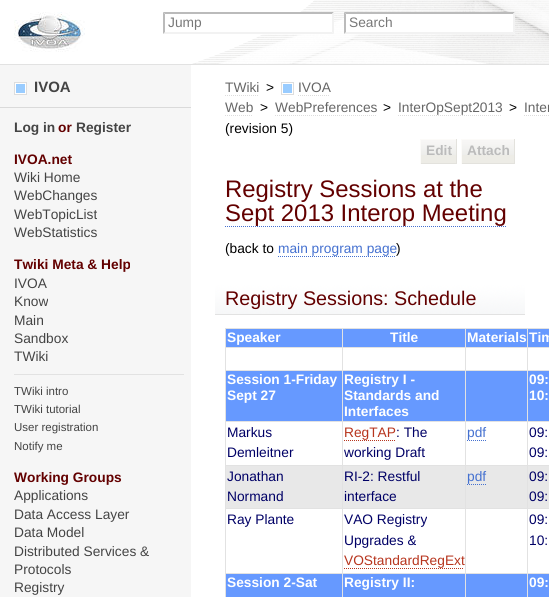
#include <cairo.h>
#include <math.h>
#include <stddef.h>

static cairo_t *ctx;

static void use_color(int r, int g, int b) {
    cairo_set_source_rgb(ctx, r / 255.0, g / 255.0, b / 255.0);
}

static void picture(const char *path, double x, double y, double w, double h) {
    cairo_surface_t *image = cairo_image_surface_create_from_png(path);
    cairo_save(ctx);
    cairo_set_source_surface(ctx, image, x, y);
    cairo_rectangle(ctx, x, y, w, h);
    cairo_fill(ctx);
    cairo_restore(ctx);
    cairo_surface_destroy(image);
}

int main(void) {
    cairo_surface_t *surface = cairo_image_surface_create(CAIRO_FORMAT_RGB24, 549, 597);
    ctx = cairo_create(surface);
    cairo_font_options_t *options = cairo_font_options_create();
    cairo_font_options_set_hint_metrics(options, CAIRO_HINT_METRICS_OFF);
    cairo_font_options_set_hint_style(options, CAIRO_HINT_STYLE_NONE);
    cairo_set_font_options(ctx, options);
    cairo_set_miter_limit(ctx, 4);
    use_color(246, 246, 246);
    cairo_paint(ctx);
    use_color(226, 226, 226);
    cairo_rectangle(ctx, 0, 64, 549, 1);
    cairo_fill(ctx);
    picture("img1.png", 0, 0, 549, 64);
    picture("img2.png", 14, 12, 71, 40);
    use_color(255, 255, 255);
    cairo_rectangle(ctx, 264, 12, 70, 22);
    cairo_fill(ctx);
    use_color(187, 187, 187);
    cairo_new_path(ctx);
    cairo_move_to(ctx, 163, 12);
    cairo_line_to(ctx, 334, 12);
    cairo_line_to(ctx, 332, 14);
    cairo_line_to(ctx, 165, 14);
    cairo_close_path(ctx);
    cairo_fill(ctx);
    use_color(242, 242, 242);
    cairo_new_path(ctx);
    cairo_move_to(ctx, 334, 12);
    cairo_line_to(ctx, 334, 34);
    cairo_line_to(ctx, 332, 32);
    cairo_line_to(ctx, 332, 14);
    cairo_close_path(ctx);
    cairo_fill(ctx);
    cairo_new_path(ctx);
    cairo_move_to(ctx, 334, 34);
    cairo_line_to(ctx, 163, 34);
    cairo_line_to(ctx, 165, 32);
    cairo_line_to(ctx, 332, 32);
    cairo_close_path(ctx);
    cairo_fill(ctx);
    use_color(187, 187, 187);
    cairo_new_path(ctx);
    cairo_move_to(ctx, 163, 34);
    cairo_line_to(ctx, 163, 12);
    cairo_line_to(ctx, 165, 14);
    cairo_line_to(ctx, 165, 32);
    cairo_close_path(ctx);
    cairo_fill(ctx);
    cairo_select_font_face(ctx, "Liberation Sans", CAIRO_FONT_SLANT_NORMAL, CAIRO_FONT_WEIGHT_NORMAL);
    cairo_set_font_size(ctx, 13.75);
    use_color(119, 119, 119);
    cairo_move_to(ctx, 168, 27);
    cairo_show_text(ctx, "Jump");
    use_color(255, 255, 255);
    cairo_rectangle(ctx, 344, 12, 171, 22);
    cairo_fill(ctx);
    use_color(187, 187, 187);
    cairo_new_path(ctx);
    cairo_move_to(ctx, 344, 12);
    cairo_line_to(ctx, 515, 12);
    cairo_line_to(ctx, 513, 14);
    cairo_line_to(ctx, 346, 14);
    cairo_close_path(ctx);
    cairo_fill(ctx);
    use_color(242, 242, 242);
    cairo_new_path(ctx);
    cairo_move_to(ctx, 515, 12);
    cairo_line_to(ctx, 515, 34);
    cairo_line_to(ctx, 513, 32);
    cairo_line_to(ctx, 513, 14);
    cairo_close_path(ctx);
    cairo_fill(ctx);
    cairo_new_path(ctx);
    cairo_move_to(ctx, 515, 34);
    cairo_line_to(ctx, 344, 34);
    cairo_line_to(ctx, 346, 32);
    cairo_line_to(ctx, 513, 32);
    cairo_close_path(ctx);
    cairo_fill(ctx);
    use_color(187, 187, 187);
    cairo_new_path(ctx);
    cairo_move_to(ctx, 344, 34);
    cairo_line_to(ctx, 344, 12);
    cairo_line_to(ctx, 346, 14);
    cairo_line_to(ctx, 346, 32);
    cairo_close_path(ctx);
    cairo_fill(ctx);
    use_color(119, 119, 119);
    cairo_move_to(ctx, 349, 27);
    cairo_show_text(ctx, "Search");
    use_color(255, 255, 255);
    cairo_rectangle(ctx, 191, 65, 358, 532);
    cairo_fill(ctx);
    use_color(218, 218, 218);
    cairo_rectangle(ctx, 0, 107, 191, 1);
    cairo_fill(ctx);
    use_color(153, 204, 255);
    cairo_rectangle(ctx, 16, 84, 9, 9);
    cairo_fill(ctx);
    picture("img3.png", 14, 82, 13, 13);
    cairo_select_font_face(ctx, "Liberation Sans", CAIRO_FONT_SLANT_NORMAL, CAIRO_FONT_WEIGHT_BOLD);
    cairo_set_font_size(ctx, 15);
    use_color(68, 68, 68);
    cairo_move_to(ctx, 34, 92);
    cairo_show_text(ctx, "IVOA");
    cairo_set_font_size(ctx, 13.75);
    cairo_move_to(ctx, 14, 132);
    cairo_show_text(ctx, "Log in");
    use_color(99, 0, 0);
    cairo_move_to(ctx, 58, 132);
    cairo_show_text(ctx, "or");
    use_color(68, 68, 68);
    cairo_move_to(ctx, 76, 132);
    cairo_show_text(ctx, "Register");
    use_color(99, 0, 0);
    cairo_move_to(ctx, 14, 164);
    cairo_show_text(ctx, "IVOA.net");
    cairo_select_font_face(ctx, "Liberation Sans", CAIRO_FONT_SLANT_NORMAL, CAIRO_FONT_WEIGHT_NORMAL);
    use_color(68, 68, 68);
    cairo_move_to(ctx, 14, 182);
    cairo_show_text(ctx, "Wiki Home");
    cairo_move_to(ctx, 14, 200);
    cairo_show_text(ctx, "WebChanges");
    cairo_move_to(ctx, 14, 219);
    cairo_show_text(ctx, "WebTopicList");
    cairo_move_to(ctx, 14, 237);
    cairo_show_text(ctx, "WebStatistics");
    cairo_select_font_face(ctx, "Liberation Sans", CAIRO_FONT_SLANT_NORMAL, CAIRO_FONT_WEIGHT_BOLD);
    use_color(99, 0, 0);
    cairo_move_to(ctx, 14, 269);
    cairo_show_text(ctx, "Twiki Meta & Help");
    cairo_select_font_face(ctx, "Liberation Sans", CAIRO_FONT_SLANT_NORMAL, CAIRO_FONT_WEIGHT_NORMAL);
    use_color(68, 68, 68);
    cairo_move_to(ctx, 14, 288);
    cairo_show_text(ctx, "IVOA");
    cairo_move_to(ctx, 14, 306);
    cairo_show_text(ctx, "Know");
    cairo_move_to(ctx, 14, 325);
    cairo_show_text(ctx, "Main");
    cairo_move_to(ctx, 14, 343);
    cairo_show_text(ctx, "Sandbox");
    cairo_move_to(ctx, 14, 361);
    cairo_show_text(ctx, "TWiki");
    use_color(226, 226, 226);
    cairo_rectangle(ctx, 14, 374, 170, 1);
    cairo_fill(ctx);
    cairo_set_font_size(ctx, 11.5);
    use_color(68, 68, 68);
    cairo_move_to(ctx, 14, 395);
    cairo_show_text(ctx, "TWiki intro");
    cairo_move_to(ctx, 14, 413);
    cairo_show_text(ctx, "TWiki tutorial");
    cairo_move_to(ctx, 14, 431);
    cairo_show_text(ctx, "User registration");
    cairo_move_to(ctx, 14, 450);
    cairo_show_text(ctx, "Notify me");
    cairo_select_font_face(ctx, "Liberation Sans", CAIRO_FONT_SLANT_NORMAL, CAIRO_FONT_WEIGHT_BOLD);
    cairo_set_font_size(ctx, 13.75);
    use_color(99, 0, 0);
    cairo_move_to(ctx, 14, 482);
    cairo_show_text(ctx, "Working Groups");
    cairo_select_font_face(ctx, "Liberation Sans", CAIRO_FONT_SLANT_NORMAL, CAIRO_FONT_WEIGHT_NORMAL);
    use_color(68, 68, 68);
    cairo_move_to(ctx, 14, 500);
    cairo_show_text(ctx, "Applications");
    cairo_move_to(ctx, 14, 519);
    cairo_show_text(ctx, "Data Access Layer");
    cairo_move_to(ctx, 14, 537);
    cairo_show_text(ctx, "Data Model");
    cairo_move_to(ctx, 14, 556);
    cairo_show_text(ctx, "Distributed Services &");
    cairo_move_to(ctx, 14, 574);
    cairo_show_text(ctx, "Protocols");
    cairo_move_to(ctx, 14, 592);
    cairo_show_text(ctx, "Registry");
    use_color(102, 102, 102);
    cairo_move_to(ctx, 225, 92);
    cairo_show_text(ctx, "TWiki");
    cairo_new_path(ctx);
    cairo_move_to(ctx, 225, 95.5);
    cairo_line_to(ctx, 259, 95.5);
    use_color(221, 221, 221);
    cairo_set_line_width(ctx, 1);
    cairo_set_dash(ctx, (double[]){1, 1}, 2, 0);
    cairo_stroke(ctx);
    use_color(0, 0, 0);
    cairo_move_to(ctx, 266, 92);
    cairo_show_text(ctx, ">");
    use_color(153, 204, 255);
    cairo_rectangle(ctx, 283, 84, 9, 9);
    cairo_fill(ctx);
    picture("img3.png", 281, 82, 13, 13);
    use_color(102, 102, 102);
    cairo_move_to(ctx, 298, 92);
    cairo_show_text(ctx, "IVOA");
    cairo_new_path(ctx);
    cairo_move_to(ctx, 298, 95.5);
    cairo_line_to(ctx, 330, 95.5);
    use_color(221, 221, 221);
    cairo_stroke(ctx);
    use_color(102, 102, 102);
    cairo_move_to(ctx, 225, 112);
    cairo_show_text(ctx, "Web");
    cairo_new_path(ctx);
    cairo_move_to(ctx, 225, 115.5);
    cairo_line_to(ctx, 253, 115.5);
    use_color(221, 221, 221);
    cairo_stroke(ctx);
    use_color(0, 0, 0);
    cairo_move_to(ctx, 260, 112);
    cairo_show_text(ctx, ">");
    use_color(102, 102, 102);
    cairo_move_to(ctx, 275, 112);
    cairo_show_text(ctx, "WebPreferences");
    cairo_new_path(ctx);
    cairo_move_to(ctx, 275, 115.5);
    cairo_line_to(ctx, 376, 115.5);
    use_color(221, 221, 221);
    cairo_stroke(ctx);
    use_color(0, 0, 0);
    cairo_move_to(ctx, 383, 112);
    cairo_show_text(ctx, ">");
    use_color(102, 102, 102);
    cairo_move_to(ctx, 398, 112);
    cairo_show_text(ctx, "InterOpSept2013");
    cairo_new_path(ctx);
    cairo_move_to(ctx, 398, 115.5);
    cairo_line_to(ctx, 502, 115.5);
    use_color(221, 221, 221);
    cairo_stroke(ctx);
    use_color(0, 0, 0);
    cairo_move_to(ctx, 509, 112);
    cairo_show_text(ctx, ">");
    use_color(102, 102, 102);
    cairo_move_to(ctx, 524, 112);
    cairo_show_text(ctx, "Inter");
    cairo_new_path(ctx);
    cairo_move_to(ctx, 524, 115.5);
    cairo_line_to(ctx, 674, 115.5);
    use_color(221, 221, 221);
    cairo_stroke(ctx);
    use_color(0, 0, 0);
    cairo_move_to(ctx, 225, 133);
    cairo_show_text(ctx, "(revision 5)");
    use_color(237, 236, 230);
    cairo_rectangle(ctx, 421, 155, 35, 8);
    cairo_fill(ctx);
    picture("img4.png", 421, 140, 35, 15);
    use_color(252, 251, 249);
    cairo_rectangle(ctx, 420, 139, 37, 1);
    cairo_fill(ctx);
    use_color(227, 226, 221);
    cairo_rectangle(ctx, 456, 139, 1, 25);
    cairo_fill(ctx);
    cairo_rectangle(ctx, 420, 163, 37, 1);
    cairo_fill(ctx);
    use_color(252, 251, 249);
    cairo_rectangle(ctx, 420, 139, 1, 25);
    cairo_fill(ctx);
    cairo_select_font_face(ctx, "Liberation Sans", CAIRO_FONT_SLANT_NORMAL, CAIRO_FONT_WEIGHT_BOLD);
    use_color(187, 187, 187);
    cairo_move_to(ctx, 426, 155);
    cairo_show_text(ctx, "Edit");
    use_color(237, 236, 230);
    cairo_rectangle(ctx, 462, 155, 52, 8);
    cairo_fill(ctx);
    picture("img5.png", 462, 140, 52, 15);
    use_color(252, 251, 249);
    cairo_rectangle(ctx, 461, 139, 54, 1);
    cairo_fill(ctx);
    use_color(227, 226, 221);
    cairo_rectangle(ctx, 514, 139, 1, 25);
    cairo_fill(ctx);
    cairo_rectangle(ctx, 461, 163, 54, 1);
    cairo_fill(ctx);
    use_color(252, 251, 249);
    cairo_rectangle(ctx, 461, 139, 1, 25);
    cairo_fill(ctx);
    use_color(187, 187, 187);
    cairo_move_to(ctx, 467, 155);
    cairo_show_text(ctx, "Attach");
    cairo_select_font_face(ctx, "Liberation Sans", CAIRO_FONT_SLANT_NORMAL, CAIRO_FONT_WEIGHT_NORMAL);
    cairo_set_font_size(ctx, 23.9);
    use_color(99, 0, 0);
    cairo_move_to(ctx, 225, 197);
    cairo_show_text(ctx, "Registry Sessions at the");
    cairo_move_to(ctx, 225, 221);
    cairo_show_text(ctx, "Sept 2013 Interop Meeting");
    cairo_new_path(ctx);
    cairo_move_to(ctx, 225, 226.5);
    cairo_line_to(ctx, 507, 226.5);
    use_color(69, 113, 208);
    cairo_stroke(ctx);
    cairo_set_font_size(ctx, 13.75);
    use_color(0, 0, 0);
    cairo_move_to(ctx, 225, 253);
    cairo_show_text(ctx, "(back to");
    use_color(69, 113, 208);
    cairo_move_to(ctx, 278, 253);
    cairo_show_text(ctx, "main program page");
    cairo_new_path(ctx);
    cairo_move_to(ctx, 278, 256.5);
    cairo_line_to(ctx, 396, 256.5);
    cairo_stroke(ctx);
    use_color(0, 0, 0);
    cairo_move_to(ctx, 396, 253);
    cairo_show_text(ctx, ")");
    picture("img6.png", 215, 284, 310, 30);
    use_color(226, 226, 226);
    cairo_rectangle(ctx, 215, 314, 310, 1);
    cairo_fill(ctx);
    cairo_set_font_size(ctx, 19.75);
    use_color(99, 0, 0);
    cairo_move_to(ctx, 225, 305);
    cairo_show_text(ctx, "Registry Sessions: Schedule");
    use_color(226, 226, 226);
    cairo_rectangle(ctx, 225, 328, 324, 1);
    cairo_fill(ctx);
    cairo_rectangle(ctx, 225, 328, 1, 269);
    cairo_fill(ctx);
    use_color(102, 153, 255);
    cairo_rectangle(ctx, 226, 329, 116, 18);
    cairo_fill(ctx);
    cairo_select_font_face(ctx, "Liberation Sans", CAIRO_FONT_SLANT_NORMAL, CAIRO_FONT_WEIGHT_BOLD);
    cairo_set_font_size(ctx, 13.75);
    use_color(255, 255, 255);
    cairo_move_to(ctx, 227, 342);
    cairo_show_text(ctx, "Speaker");
    use_color(102, 153, 255);
    cairo_rectangle(ctx, 343, 329, 122, 18);
    cairo_fill(ctx);
    use_color(226, 226, 226);
    cairo_rectangle(ctx, 527, 347, 22, 1);
    cairo_fill(ctx);
    cairo_rectangle(ctx, 527, 370, 22, 1);
    cairo_fill(ctx);
    cairo_rectangle(ctx, 527, 421, 22, 1);
    cairo_fill(ctx);
    cairo_rectangle(ctx, 527, 465, 22, 1);
    cairo_fill(ctx);
    cairo_rectangle(ctx, 527, 508, 22, 1);
    cairo_fill(ctx);
    cairo_rectangle(ctx, 527, 573, 22, 1);
    cairo_fill(ctx);
    cairo_rectangle(ctx, 527, 573, 1, 24);
    cairo_fill(ctx);
    cairo_rectangle(ctx, 465, 573, 63, 1);
    cairo_fill(ctx);
    cairo_rectangle(ctx, 527, 508, 1, 66);
    cairo_fill(ctx);
    cairo_rectangle(ctx, 465, 508, 63, 1);
    cairo_fill(ctx);
    cairo_rectangle(ctx, 527, 465, 1, 44);
    cairo_fill(ctx);
    cairo_rectangle(ctx, 465, 465, 63, 1);
    cairo_fill(ctx);
    cairo_rectangle(ctx, 527, 421, 1, 45);
    cairo_fill(ctx);
    cairo_rectangle(ctx, 465, 421, 63, 1);
    cairo_fill(ctx);
    cairo_rectangle(ctx, 527, 370, 1, 52);
    cairo_fill(ctx);
    cairo_rectangle(ctx, 465, 370, 63, 1);
    cairo_fill(ctx);
    cairo_rectangle(ctx, 527, 347, 1, 24);
    cairo_fill(ctx);
    cairo_rectangle(ctx, 465, 347, 63, 1);
    cairo_fill(ctx);
    cairo_rectangle(ctx, 465, 573, 1, 24);
    cairo_fill(ctx);
    cairo_rectangle(ctx, 342, 573, 124, 1);
    cairo_fill(ctx);
    cairo_rectangle(ctx, 465, 508, 1, 66);
    cairo_fill(ctx);
    cairo_rectangle(ctx, 342, 508, 124, 1);
    cairo_fill(ctx);
    cairo_rectangle(ctx, 465, 465, 1, 44);
    cairo_fill(ctx);
    cairo_rectangle(ctx, 342, 465, 124, 1);
    cairo_fill(ctx);
    cairo_rectangle(ctx, 465, 421, 1, 45);
    cairo_fill(ctx);
    cairo_rectangle(ctx, 342, 421, 124, 1);
    cairo_fill(ctx);
    cairo_rectangle(ctx, 465, 370, 1, 52);
    cairo_fill(ctx);
    cairo_rectangle(ctx, 342, 370, 124, 1);
    cairo_fill(ctx);
    cairo_rectangle(ctx, 465, 347, 1, 24);
    cairo_fill(ctx);
    cairo_rectangle(ctx, 342, 347, 124, 1);
    cairo_fill(ctx);
    cairo_rectangle(ctx, 342, 573, 1, 24);
    cairo_fill(ctx);
    cairo_rectangle(ctx, 225, 573, 118, 1);
    cairo_fill(ctx);
    cairo_rectangle(ctx, 342, 508, 1, 66);
    cairo_fill(ctx);
    cairo_rectangle(ctx, 225, 508, 118, 1);
    cairo_fill(ctx);
    cairo_rectangle(ctx, 342, 465, 1, 44);
    cairo_fill(ctx);
    cairo_rectangle(ctx, 225, 465, 118, 1);
    cairo_fill(ctx);
    cairo_rectangle(ctx, 342, 421, 1, 45);
    cairo_fill(ctx);
    cairo_rectangle(ctx, 225, 421, 118, 1);
    cairo_fill(ctx);
    cairo_rectangle(ctx, 342, 370, 1, 52);
    cairo_fill(ctx);
    cairo_rectangle(ctx, 225, 370, 118, 1);
    cairo_fill(ctx);
    cairo_rectangle(ctx, 342, 347, 1, 24);
    cairo_fill(ctx);
    cairo_rectangle(ctx, 225, 347, 118, 1);
    cairo_fill(ctx);
    cairo_rectangle(ctx, 342, 328, 1, 20);
    cairo_fill(ctx);
    use_color(255, 255, 255);
    cairo_move_to(ctx, 390, 342);
    cairo_show_text(ctx, "Title");
    use_color(102, 153, 255);
    cairo_rectangle(ctx, 466, 329, 61, 18);
    cairo_fill(ctx);
    use_color(226, 226, 226);
    cairo_rectangle(ctx, 465, 328, 1, 20);
    cairo_fill(ctx);
    use_color(255, 255, 255);
    cairo_move_to(ctx, 467, 342);
    cairo_show_text(ctx, "Materials");
    use_color(102, 153, 255);
    cairo_rectangle(ctx, 528, 329, 21, 18);
    cairo_fill(ctx);
    use_color(226, 226, 226);
    cairo_rectangle(ctx, 527, 328, 1, 20);
    cairo_fill(ctx);
    use_color(255, 255, 255);
    cairo_move_to(ctx, 529, 342);
    cairo_show_text(ctx, "Tim");
    use_color(102, 153, 255);
    cairo_rectangle(ctx, 226, 371, 116, 50);
    cairo_fill(ctx);
    use_color(255, 255, 255);
    cairo_move_to(ctx, 227, 384);
    cairo_show_text(ctx, "Session 1-Friday");
    cairo_move_to(ctx, 227, 400);
    cairo_show_text(ctx, "Sept 27");
    use_color(102, 153, 255);
    cairo_rectangle(ctx, 343, 371, 122, 50);
    cairo_fill(ctx);
    use_color(255, 255, 255);
    cairo_move_to(ctx, 344, 384);
    cairo_show_text(ctx, "Registry I -");
    cairo_move_to(ctx, 344, 400);
    cairo_show_text(ctx, "Standards and");
    cairo_move_to(ctx, 344, 416);
    cairo_show_text(ctx, "Interfaces");
    use_color(102, 153, 255);
    cairo_rectangle(ctx, 466, 371, 61, 50);
    cairo_fill(ctx);
    cairo_rectangle(ctx, 528, 371, 21, 50);
    cairo_fill(ctx);
    use_color(255, 255, 255);
    cairo_move_to(ctx, 529, 384);
    cairo_show_text(ctx, "09:");
    cairo_move_to(ctx, 529, 400);
    cairo_show_text(ctx, "10:");
    cairo_select_font_face(ctx, "Liberation Sans", CAIRO_FONT_SLANT_NORMAL, CAIRO_FONT_WEIGHT_NORMAL);
    use_color(0, 0, 102);
    cairo_move_to(ctx, 227, 437);
    cairo_show_text(ctx, "Markus");
    cairo_move_to(ctx, 227, 457);
    cairo_show_text(ctx, "Demleitner");
    use_color(183, 53, 30);
    cairo_move_to(ctx, 344, 437);
    cairo_show_text(ctx, "RegTAP");
    cairo_new_path(ctx);
    cairo_move_to(ctx, 344, 440.5);
    cairo_line_to(ctx, 396, 440.5);
    cairo_stroke(ctx);
    use_color(0, 0, 102);
    cairo_move_to(ctx, 396, 437);
    cairo_show_text(ctx, ": The");
    cairo_move_to(ctx, 344, 457);
    cairo_show_text(ctx, "working Draft");
    use_color(69, 113, 208);
    cairo_move_to(ctx, 467, 437);
    cairo_show_text(ctx, "pdf");
    cairo_new_path(ctx);
    cairo_move_to(ctx, 467, 440.5);
    cairo_line_to(ctx, 486, 440.5);
    cairo_stroke(ctx);
    use_color(0, 0, 102);
    cairo_move_to(ctx, 529, 437);
    cairo_show_text(ctx, "09:");
    cairo_move_to(ctx, 529, 457);
    cairo_show_text(ctx, "09:");
    use_color(232, 232, 232);
    cairo_rectangle(ctx, 226, 466, 116, 42);
    cairo_fill(ctx);
    use_color(0, 0, 102);
    cairo_move_to(ctx, 227, 481);
    cairo_show_text(ctx, "Jonathan");
    cairo_move_to(ctx, 227, 501);
    cairo_show_text(ctx, "Normand");
    use_color(232, 232, 232);
    cairo_rectangle(ctx, 343, 466, 122, 42);
    cairo_fill(ctx);
    use_color(0, 0, 102);
    cairo_move_to(ctx, 344, 481);
    cairo_show_text(ctx, "RI-2: Restful");
    cairo_move_to(ctx, 344, 501);
    cairo_show_text(ctx, "interface");
    use_color(232, 232, 232);
    cairo_rectangle(ctx, 466, 466, 61, 42);
    cairo_fill(ctx);
    use_color(69, 113, 208);
    cairo_move_to(ctx, 467, 481);
    cairo_show_text(ctx, "pdf");
    cairo_new_path(ctx);
    cairo_move_to(ctx, 467, 484.5);
    cairo_line_to(ctx, 486, 484.5);
    cairo_stroke(ctx);
    use_color(232, 232, 232);
    cairo_rectangle(ctx, 528, 466, 21, 42);
    cairo_fill(ctx);
    use_color(0, 0, 102);
    cairo_move_to(ctx, 529, 481);
    cairo_show_text(ctx, "09:");
    cairo_move_to(ctx, 529, 501);
    cairo_show_text(ctx, "09:");
    cairo_move_to(ctx, 227, 524);
    cairo_show_text(ctx, "Ray Plante");
    cairo_move_to(ctx, 344, 524);
    cairo_show_text(ctx, "VAO Registry");
    cairo_move_to(ctx, 344, 545);
    cairo_show_text(ctx, "Upgrades &");
    use_color(183, 53, 30);
    cairo_move_to(ctx, 344, 565);
    cairo_show_text(ctx, "VOStandardRegExt");
    cairo_new_path(ctx);
    cairo_move_to(ctx, 344, 568.5);
    cairo_line_to(ctx, 464, 568.5);
    cairo_stroke(ctx);
    use_color(0, 0, 102);
    cairo_move_to(ctx, 529, 524);
    cairo_show_text(ctx, "09:");
    cairo_move_to(ctx, 529, 545);
    cairo_show_text(ctx, "10:");
    use_color(102, 153, 255);
    cairo_rectangle(ctx, 226, 574, 116, 23);
    cairo_fill(ctx);
    cairo_select_font_face(ctx, "Liberation Sans", CAIRO_FONT_SLANT_NORMAL, CAIRO_FONT_WEIGHT_BOLD);
    use_color(255, 255, 255);
    cairo_move_to(ctx, 227, 587);
    cairo_show_text(ctx, "Session 2-Sat");
    use_color(102, 153, 255);
    cairo_rectangle(ctx, 343, 574, 122, 23);
    cairo_fill(ctx);
    use_color(255, 255, 255);
    cairo_move_to(ctx, 344, 587);
    cairo_show_text(ctx, "Registry II:");
    use_color(102, 153, 255);
    cairo_rectangle(ctx, 466, 574, 61, 23);
    cairo_fill(ctx);
    cairo_rectangle(ctx, 528, 574, 21, 23);
    cairo_fill(ctx);
    use_color(255, 255, 255);
    cairo_move_to(ctx, 529, 587);
    cairo_show_text(ctx, "09:");
    cairo_surface_write_to_png(surface, "result.png");
    cairo_font_options_destroy(options);
    cairo_destroy(ctx);
    cairo_surface_destroy(surface);
    return 0;
}
